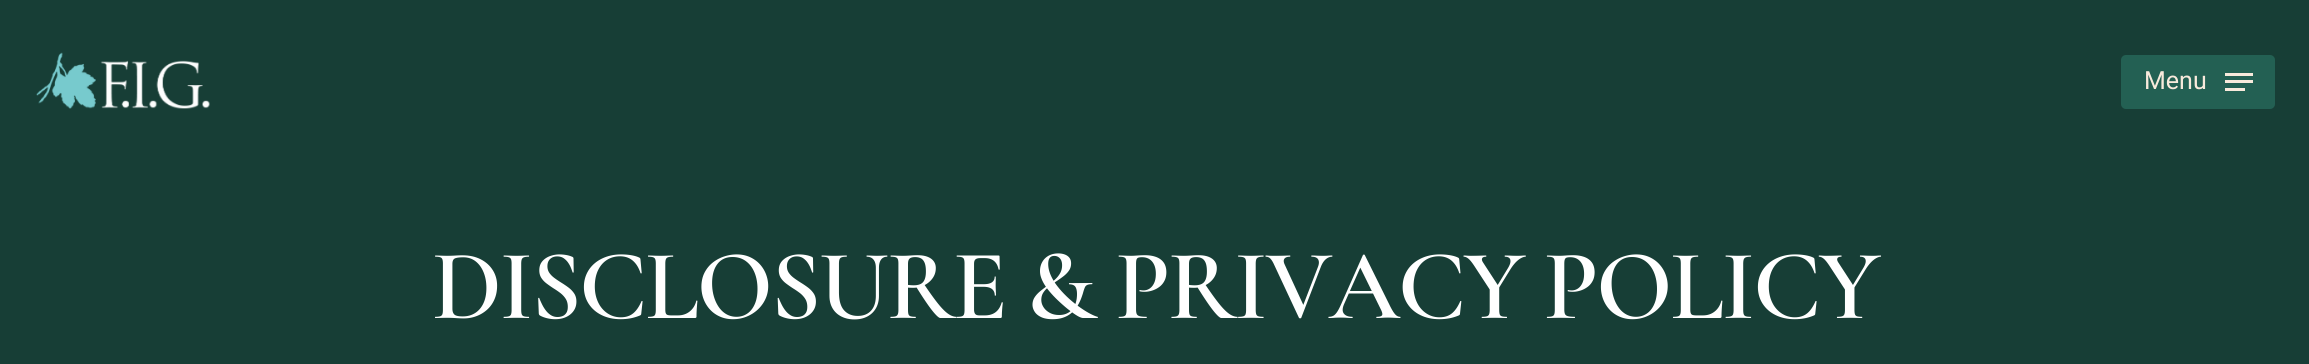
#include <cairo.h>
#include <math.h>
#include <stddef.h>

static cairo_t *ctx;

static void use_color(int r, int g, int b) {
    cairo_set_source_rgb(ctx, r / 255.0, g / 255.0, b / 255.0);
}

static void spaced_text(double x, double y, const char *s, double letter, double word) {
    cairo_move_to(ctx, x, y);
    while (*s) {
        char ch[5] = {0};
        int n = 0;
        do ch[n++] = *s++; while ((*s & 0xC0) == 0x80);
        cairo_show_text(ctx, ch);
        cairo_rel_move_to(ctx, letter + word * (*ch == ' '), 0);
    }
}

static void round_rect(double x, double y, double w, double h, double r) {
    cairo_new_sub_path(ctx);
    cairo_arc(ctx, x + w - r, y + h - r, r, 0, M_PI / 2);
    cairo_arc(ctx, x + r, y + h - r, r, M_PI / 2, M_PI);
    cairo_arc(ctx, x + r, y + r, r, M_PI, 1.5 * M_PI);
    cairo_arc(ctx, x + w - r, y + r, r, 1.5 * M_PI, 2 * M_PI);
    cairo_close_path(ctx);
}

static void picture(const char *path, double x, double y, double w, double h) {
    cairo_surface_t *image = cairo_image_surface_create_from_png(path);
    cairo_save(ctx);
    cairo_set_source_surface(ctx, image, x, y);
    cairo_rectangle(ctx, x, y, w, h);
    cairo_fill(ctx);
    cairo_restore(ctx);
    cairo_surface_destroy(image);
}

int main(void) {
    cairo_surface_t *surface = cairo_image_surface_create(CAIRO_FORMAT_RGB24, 2309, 364);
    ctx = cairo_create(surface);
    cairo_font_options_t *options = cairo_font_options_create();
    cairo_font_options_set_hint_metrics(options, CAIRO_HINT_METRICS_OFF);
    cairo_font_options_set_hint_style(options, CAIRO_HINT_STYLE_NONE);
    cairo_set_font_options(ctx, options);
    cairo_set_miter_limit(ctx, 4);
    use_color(23, 62, 54);
    cairo_paint(ctx);
    picture("img1.png", 36, 52, 174, 57);
    use_color(35, 96, 83);
    round_rect(2121, 55, 154, 54, 5);
    cairo_fill(ctx);
    cairo_select_font_face(ctx, "Heebo", CAIRO_FONT_SLANT_NORMAL, CAIRO_FONT_WEIGHT_NORMAL);
    cairo_set_font_size(ctx, 25);
    use_color(248, 234, 220);
    cairo_move_to(ctx, 2144, 89);
    cairo_show_text(ctx, "Menu");
    cairo_rectangle(ctx, 2225, 73, 28, 3);
    cairo_fill(ctx);
    cairo_rectangle(ctx, 2225, 88, 20, 3);
    cairo_fill(ctx);
    cairo_rectangle(ctx, 2225, 80, 28, 3);
    cairo_fill(ctx);
    cairo_select_font_face(ctx, "Cormorant Garamond SemiBold", CAIRO_FONT_SLANT_NORMAL, CAIRO_FONT_WEIGHT_NORMAL);
    cairo_set_font_size(ctx, 100);
    use_color(255, 255, 255);
    spaced_text(432, 318, "DISCLOSURE & PRIVACY POLICY", -2.5, 0);
    cairo_surface_write_to_png(surface, "result.png");
    cairo_font_options_destroy(options);
    cairo_destroy(ctx);
    cairo_surface_destroy(surface);
    return 0;
}
